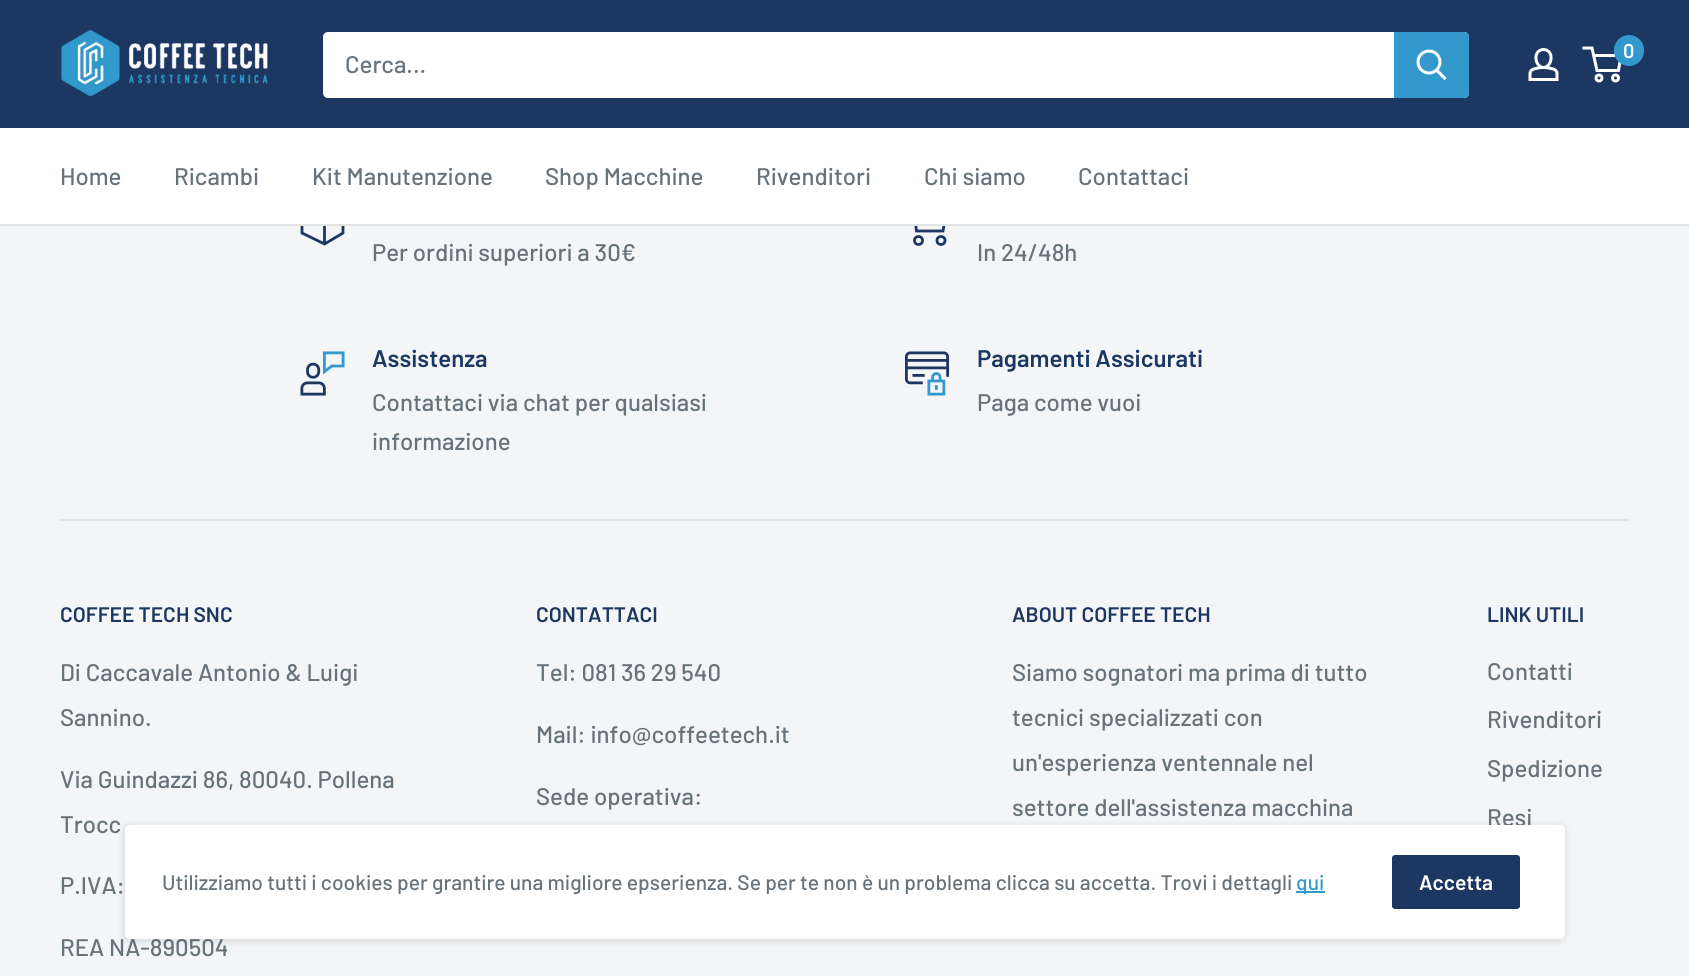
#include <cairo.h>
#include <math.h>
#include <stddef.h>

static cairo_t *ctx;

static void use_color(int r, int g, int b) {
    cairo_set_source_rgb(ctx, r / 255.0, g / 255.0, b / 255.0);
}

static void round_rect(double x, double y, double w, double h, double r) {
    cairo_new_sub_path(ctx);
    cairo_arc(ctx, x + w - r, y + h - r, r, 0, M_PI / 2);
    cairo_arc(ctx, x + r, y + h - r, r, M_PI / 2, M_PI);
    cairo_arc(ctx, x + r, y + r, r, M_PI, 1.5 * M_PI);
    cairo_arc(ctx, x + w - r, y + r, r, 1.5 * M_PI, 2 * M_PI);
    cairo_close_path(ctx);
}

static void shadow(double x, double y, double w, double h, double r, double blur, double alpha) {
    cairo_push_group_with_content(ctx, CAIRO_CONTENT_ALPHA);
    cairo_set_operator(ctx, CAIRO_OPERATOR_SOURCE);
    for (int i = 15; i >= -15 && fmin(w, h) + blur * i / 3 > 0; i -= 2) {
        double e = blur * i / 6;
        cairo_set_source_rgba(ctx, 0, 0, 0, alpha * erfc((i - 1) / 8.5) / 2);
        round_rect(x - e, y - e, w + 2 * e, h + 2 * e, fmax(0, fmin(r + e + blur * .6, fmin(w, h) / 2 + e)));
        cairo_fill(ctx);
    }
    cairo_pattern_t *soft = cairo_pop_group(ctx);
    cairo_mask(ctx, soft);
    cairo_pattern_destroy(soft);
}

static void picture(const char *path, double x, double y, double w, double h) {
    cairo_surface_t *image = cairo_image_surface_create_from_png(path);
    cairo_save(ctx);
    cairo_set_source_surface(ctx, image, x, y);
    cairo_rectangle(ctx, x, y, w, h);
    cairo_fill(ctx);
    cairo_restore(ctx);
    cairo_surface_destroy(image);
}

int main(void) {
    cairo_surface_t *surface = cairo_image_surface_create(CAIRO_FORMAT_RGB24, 1689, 976);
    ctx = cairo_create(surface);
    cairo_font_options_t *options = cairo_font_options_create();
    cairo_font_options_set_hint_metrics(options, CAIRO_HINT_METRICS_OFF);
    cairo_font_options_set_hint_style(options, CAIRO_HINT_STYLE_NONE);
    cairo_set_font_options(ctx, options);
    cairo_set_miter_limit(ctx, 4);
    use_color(243, 245, 246);
    cairo_paint(ctx);
    use_color(28, 55, 97);
    cairo_rectangle(ctx, 0, 0, 1689, 128);
    cairo_fill(ctx);
    picture("img1.png", 61, 29, 207, 68);
    picture("img2.png", 1528, 48, 31, 33);
    cairo_arc(ctx, 1599, 78, 3, 0, 2 * M_PI);
    use_color(255, 255, 255);
    cairo_set_line_width(ctx, 3);
    cairo_stroke(ctx);
    cairo_arc(ctx, 1615.5, 78, 3, 0, 2 * M_PI);
    cairo_stroke(ctx);
    cairo_new_path(ctx);
    cairo_move_to(ctx, 1593.5, 55.5);
    cairo_line_to(ctx, 1621, 55.5);
    cairo_line_to(ctx, 1618.5, 70.5);
    cairo_line_to(ctx, 1597, 70.5);
    cairo_line_to(ctx, 1592, 48);
    cairo_line_to(ctx, 1582.5, 48);
    cairo_stroke(ctx);
    use_color(51, 153, 204);
    round_rect(1614, 35, 30, 31, 15);
    cairo_fill(ctx);
    cairo_select_font_face(ctx, "Barlow SemiBold", CAIRO_FONT_SLANT_NORMAL, CAIRO_FONT_WEIGHT_NORMAL);
    cairo_set_font_size(ctx, 20);
    use_color(255, 255, 255);
    cairo_move_to(ctx, 1623, 58);
    cairo_show_text(ctx, "0");
    round_rect(323, 32, 1146, 66, 5);
    cairo_fill(ctx);
    cairo_select_font_face(ctx, "Barlow Medium", CAIRO_FONT_SLANT_NORMAL, CAIRO_FONT_WEIGHT_NORMAL);
    cairo_set_font_size(ctx, 24);
    use_color(103, 114, 121);
    cairo_move_to(ctx, 345, 73);
    cairo_show_text(ctx, "Cerca...");
    use_color(51, 153, 204);
    cairo_new_path(ctx);
    cairo_move_to(ctx, 1394, 32);
    cairo_line_to(ctx, 1464, 32);
    cairo_curve_to(ctx, 1467, 32, 1469, 34, 1469, 37);
    cairo_line_to(ctx, 1469, 93);
    cairo_curve_to(ctx, 1469, 96, 1467, 98, 1464, 98);
    cairo_line_to(ctx, 1394, 98);
    cairo_close_path(ctx);
    cairo_fill(ctx);
    cairo_new_path(ctx);
    cairo_move_to(ctx, 1444.5, 78);
    cairo_line_to(ctx, 1437, 70.5);
    use_color(255, 255, 255);
    cairo_set_line_cap(ctx, CAIRO_LINE_CAP_SQUARE);
    cairo_stroke(ctx);
    cairo_arc(ctx, 1429, 62, 11, 0, 2 * M_PI);
    cairo_set_line_cap(ctx, CAIRO_LINE_CAP_BUTT);
    cairo_stroke(ctx);
    cairo_new_path(ctx);
    cairo_move_to(ctx, 343, 214);
    cairo_line_to(ctx, 324.5, 223.5);
    cairo_line_to(ctx, 302, 212);
    cairo_move_to(ctx, 324.5, 223.5);
    cairo_line_to(ctx, 324.5, 244);
    use_color(28, 55, 97);
    cairo_set_line_width(ctx, 2.8);
    cairo_stroke(ctx);
    cairo_new_path(ctx);
    cairo_move_to(ctx, 343, 214);
    cairo_line_to(ctx, 343, 233);
    cairo_line_to(ctx, 324.5, 244);
    cairo_line_to(ctx, 302, 233);
    cairo_line_to(ctx, 302, 212);
    cairo_line_to(ctx, 320.5, 203);
    cairo_close_path(ctx);
    cairo_set_line_cap(ctx, CAIRO_LINE_CAP_SQUARE);
    cairo_stroke(ctx);
    cairo_new_path(ctx);
    cairo_move_to(ctx, 946.5, 212);
    cairo_line_to(ctx, 943, 231);
    cairo_line_to(ctx, 916.5, 231);
    cairo_line_to(ctx, 913, 203);
    cairo_line_to(ctx, 907.5, 203);
    cairo_stroke(ctx);
    use_color(255, 255, 255);
    cairo_rectangle(ctx, 0, 128, 1689, 96);
    cairo_fill(ctx);
    use_color(225, 227, 228);
    cairo_rectangle(ctx, 0, 224, 1689, 2);
    cairo_fill(ctx);
    use_color(103, 114, 121);
    cairo_move_to(ctx, 60, 185);
    cairo_show_text(ctx, "Home");
    cairo_move_to(ctx, 174, 185);
    cairo_show_text(ctx, "Ricambi");
    cairo_move_to(ctx, 312, 185);
    cairo_show_text(ctx, "Kit Manutenzione");
    cairo_move_to(ctx, 545, 185);
    cairo_show_text(ctx, "Shop Macchine");
    cairo_move_to(ctx, 756, 185);
    cairo_show_text(ctx, "Rivenditori");
    cairo_move_to(ctx, 924, 185);
    cairo_show_text(ctx, "Chi siamo");
    cairo_move_to(ctx, 1078, 185);
    cairo_show_text(ctx, "Contattaci");
    cairo_move_to(ctx, 372, 261);
    cairo_show_text(ctx, "Per ordini superiori a 30€");
    cairo_new_path(ctx);
    cairo_arc(ctx, 918.5, 240.5, 4, 0, 2 * M_PI);
    use_color(28, 55, 97);
    cairo_set_line_cap(ctx, CAIRO_LINE_CAP_BUTT);
    cairo_stroke(ctx);
    cairo_arc(ctx, 941, 240.5, 4, 0, 2 * M_PI);
    cairo_stroke(ctx);
    use_color(103, 114, 121);
    cairo_move_to(ctx, 977, 261);
    cairo_show_text(ctx, "In 24/48h");
    picture("img3.png", 300, 351, 45, 45);
    cairo_select_font_face(ctx, "Barlow SemiBold", CAIRO_FONT_SLANT_NORMAL, CAIRO_FONT_WEIGHT_NORMAL);
    use_color(28, 55, 97);
    cairo_move_to(ctx, 372, 367);
    cairo_show_text(ctx, "Assistenza");
    cairo_select_font_face(ctx, "Barlow Medium", CAIRO_FONT_SLANT_NORMAL, CAIRO_FONT_WEIGHT_NORMAL);
    use_color(103, 114, 121);
    cairo_move_to(ctx, 372, 411);
    cairo_show_text(ctx, "Contattaci via chat per qualsiasi");
    cairo_move_to(ctx, 372, 450);
    cairo_show_text(ctx, "informazione");
    picture("img4.png", 905, 351, 45, 45);
    cairo_select_font_face(ctx, "Barlow SemiBold", CAIRO_FONT_SLANT_NORMAL, CAIRO_FONT_WEIGHT_NORMAL);
    use_color(28, 55, 97);
    cairo_move_to(ctx, 977, 367);
    cairo_show_text(ctx, "Pagamenti Assicurati");
    cairo_select_font_face(ctx, "Barlow Medium", CAIRO_FONT_SLANT_NORMAL, CAIRO_FONT_WEIGHT_NORMAL);
    use_color(103, 114, 121);
    cairo_move_to(ctx, 977, 411);
    cairo_show_text(ctx, "Paga come vuoi");
    use_color(225, 227, 228);
    cairo_rectangle(ctx, 60, 519, 1569, 2);
    cairo_fill(ctx);
    cairo_select_font_face(ctx, "Barlow SemiBold", CAIRO_FONT_SLANT_NORMAL, CAIRO_FONT_WEIGHT_NORMAL);
    cairo_set_font_size(ctx, 21);
    use_color(28, 55, 97);
    cairo_move_to(ctx, 60, 622);
    cairo_show_text(ctx, "COFFEE TECH SNC");
    cairo_select_font_face(ctx, "Barlow Medium", CAIRO_FONT_SLANT_NORMAL, CAIRO_FONT_WEIGHT_NORMAL);
    cairo_set_font_size(ctx, 24);
    use_color(103, 114, 121);
    cairo_move_to(ctx, 60, 681);
    cairo_show_text(ctx, "Di Caccavale Antonio & Luigi");
    cairo_move_to(ctx, 60, 726);
    cairo_show_text(ctx, "Sannino.");
    cairo_move_to(ctx, 60, 788);
    cairo_show_text(ctx, "Via Guindazzi 86, 80040. Pollena");
    cairo_move_to(ctx, 60, 833);
    cairo_show_text(ctx, "Trocc");
    cairo_move_to(ctx, 60, 894);
    cairo_show_text(ctx, "P.IVA:");
    cairo_move_to(ctx, 60, 956);
    cairo_show_text(ctx, "REA NA-890504");
    cairo_select_font_face(ctx, "Barlow SemiBold", CAIRO_FONT_SLANT_NORMAL, CAIRO_FONT_WEIGHT_NORMAL);
    cairo_set_font_size(ctx, 21);
    use_color(28, 55, 97);
    cairo_move_to(ctx, 536, 622);
    cairo_show_text(ctx, "CONTATTACI");
    cairo_select_font_face(ctx, "Barlow Medium", CAIRO_FONT_SLANT_NORMAL, CAIRO_FONT_WEIGHT_NORMAL);
    cairo_set_font_size(ctx, 24);
    use_color(103, 114, 121);
    cairo_move_to(ctx, 536, 681);
    cairo_show_text(ctx, "Tel: 081 36 29 540");
    cairo_move_to(ctx, 536, 743);
    cairo_show_text(ctx, "Mail: info@coffeetech.it");
    cairo_move_to(ctx, 536, 805);
    cairo_show_text(ctx, "Sede operativa:");
    cairo_select_font_face(ctx, "Barlow SemiBold", CAIRO_FONT_SLANT_NORMAL, CAIRO_FONT_WEIGHT_NORMAL);
    cairo_set_font_size(ctx, 21);
    use_color(28, 55, 97);
    cairo_move_to(ctx, 1012, 622);
    cairo_show_text(ctx, "ABOUT COFFEE TECH");
    cairo_select_font_face(ctx, "Barlow Medium", CAIRO_FONT_SLANT_NORMAL, CAIRO_FONT_WEIGHT_NORMAL);
    cairo_set_font_size(ctx, 24);
    use_color(103, 114, 121);
    cairo_move_to(ctx, 1012, 681);
    cairo_show_text(ctx, "Siamo sognatori ma prima di tutto");
    cairo_move_to(ctx, 1012, 726);
    cairo_show_text(ctx, "tecnici specializzati con");
    cairo_move_to(ctx, 1012, 771);
    cairo_show_text(ctx, "un'esperienza ventennale nel");
    cairo_move_to(ctx, 1012, 816);
    cairo_show_text(ctx, "settore dell'assistenza macchina");
    cairo_select_font_face(ctx, "Barlow SemiBold", CAIRO_FONT_SLANT_NORMAL, CAIRO_FONT_WEIGHT_NORMAL);
    cairo_set_font_size(ctx, 21);
    use_color(28, 55, 97);
    cairo_move_to(ctx, 1487, 622);
    cairo_show_text(ctx, "LINK UTILI");
    cairo_select_font_face(ctx, "Barlow Medium", CAIRO_FONT_SLANT_NORMAL, CAIRO_FONT_WEIGHT_NORMAL);
    cairo_set_font_size(ctx, 24);
    use_color(103, 114, 121);
    cairo_move_to(ctx, 1487, 680);
    cairo_show_text(ctx, "Contatti");
    cairo_move_to(ctx, 1487, 728);
    cairo_show_text(ctx, "Rivenditori");
    cairo_move_to(ctx, 1487, 777);
    cairo_show_text(ctx, "Spedizione");
    cairo_move_to(ctx, 1487, 826);
    cairo_show_text(ctx, "Resi");
    use_color(0, 0, 0);
    shadow(123, 825, 1443, 117, 6, 3, 0.1);
    use_color(255, 255, 255);
    round_rect(125, 825, 1440, 114, 5);
    cairo_fill(ctx);
    cairo_set_font_size(ctx, 21);
    use_color(103, 114, 121);
    cairo_move_to(ctx, 162, 890);
    cairo_show_text(ctx, "Utilizziamo tutti i cookies per grantire una migliore epserienza. Se per te non è un problema clicca su accetta. Trovi i dettagli");
    use_color(51, 153, 204);
    cairo_rectangle(ctx, 1296, 891, 29, 2);
    cairo_fill(ctx);
    cairo_move_to(ctx, 1296, 890);
    cairo_show_text(ctx, "qui");
    use_color(28, 55, 97);
    round_rect(1392, 855, 128, 54, 3);
    cairo_fill(ctx);
    cairo_select_font_face(ctx, "Barlow SemiBold", CAIRO_FONT_SLANT_NORMAL, CAIRO_FONT_WEIGHT_NORMAL);
    use_color(255, 255, 255);
    cairo_move_to(ctx, 1419, 890);
    cairo_show_text(ctx, "Accetta");
    cairo_surface_write_to_png(surface, "result.png");
    cairo_font_options_destroy(options);
    cairo_destroy(ctx);
    cairo_surface_destroy(surface);
    return 0;
}
